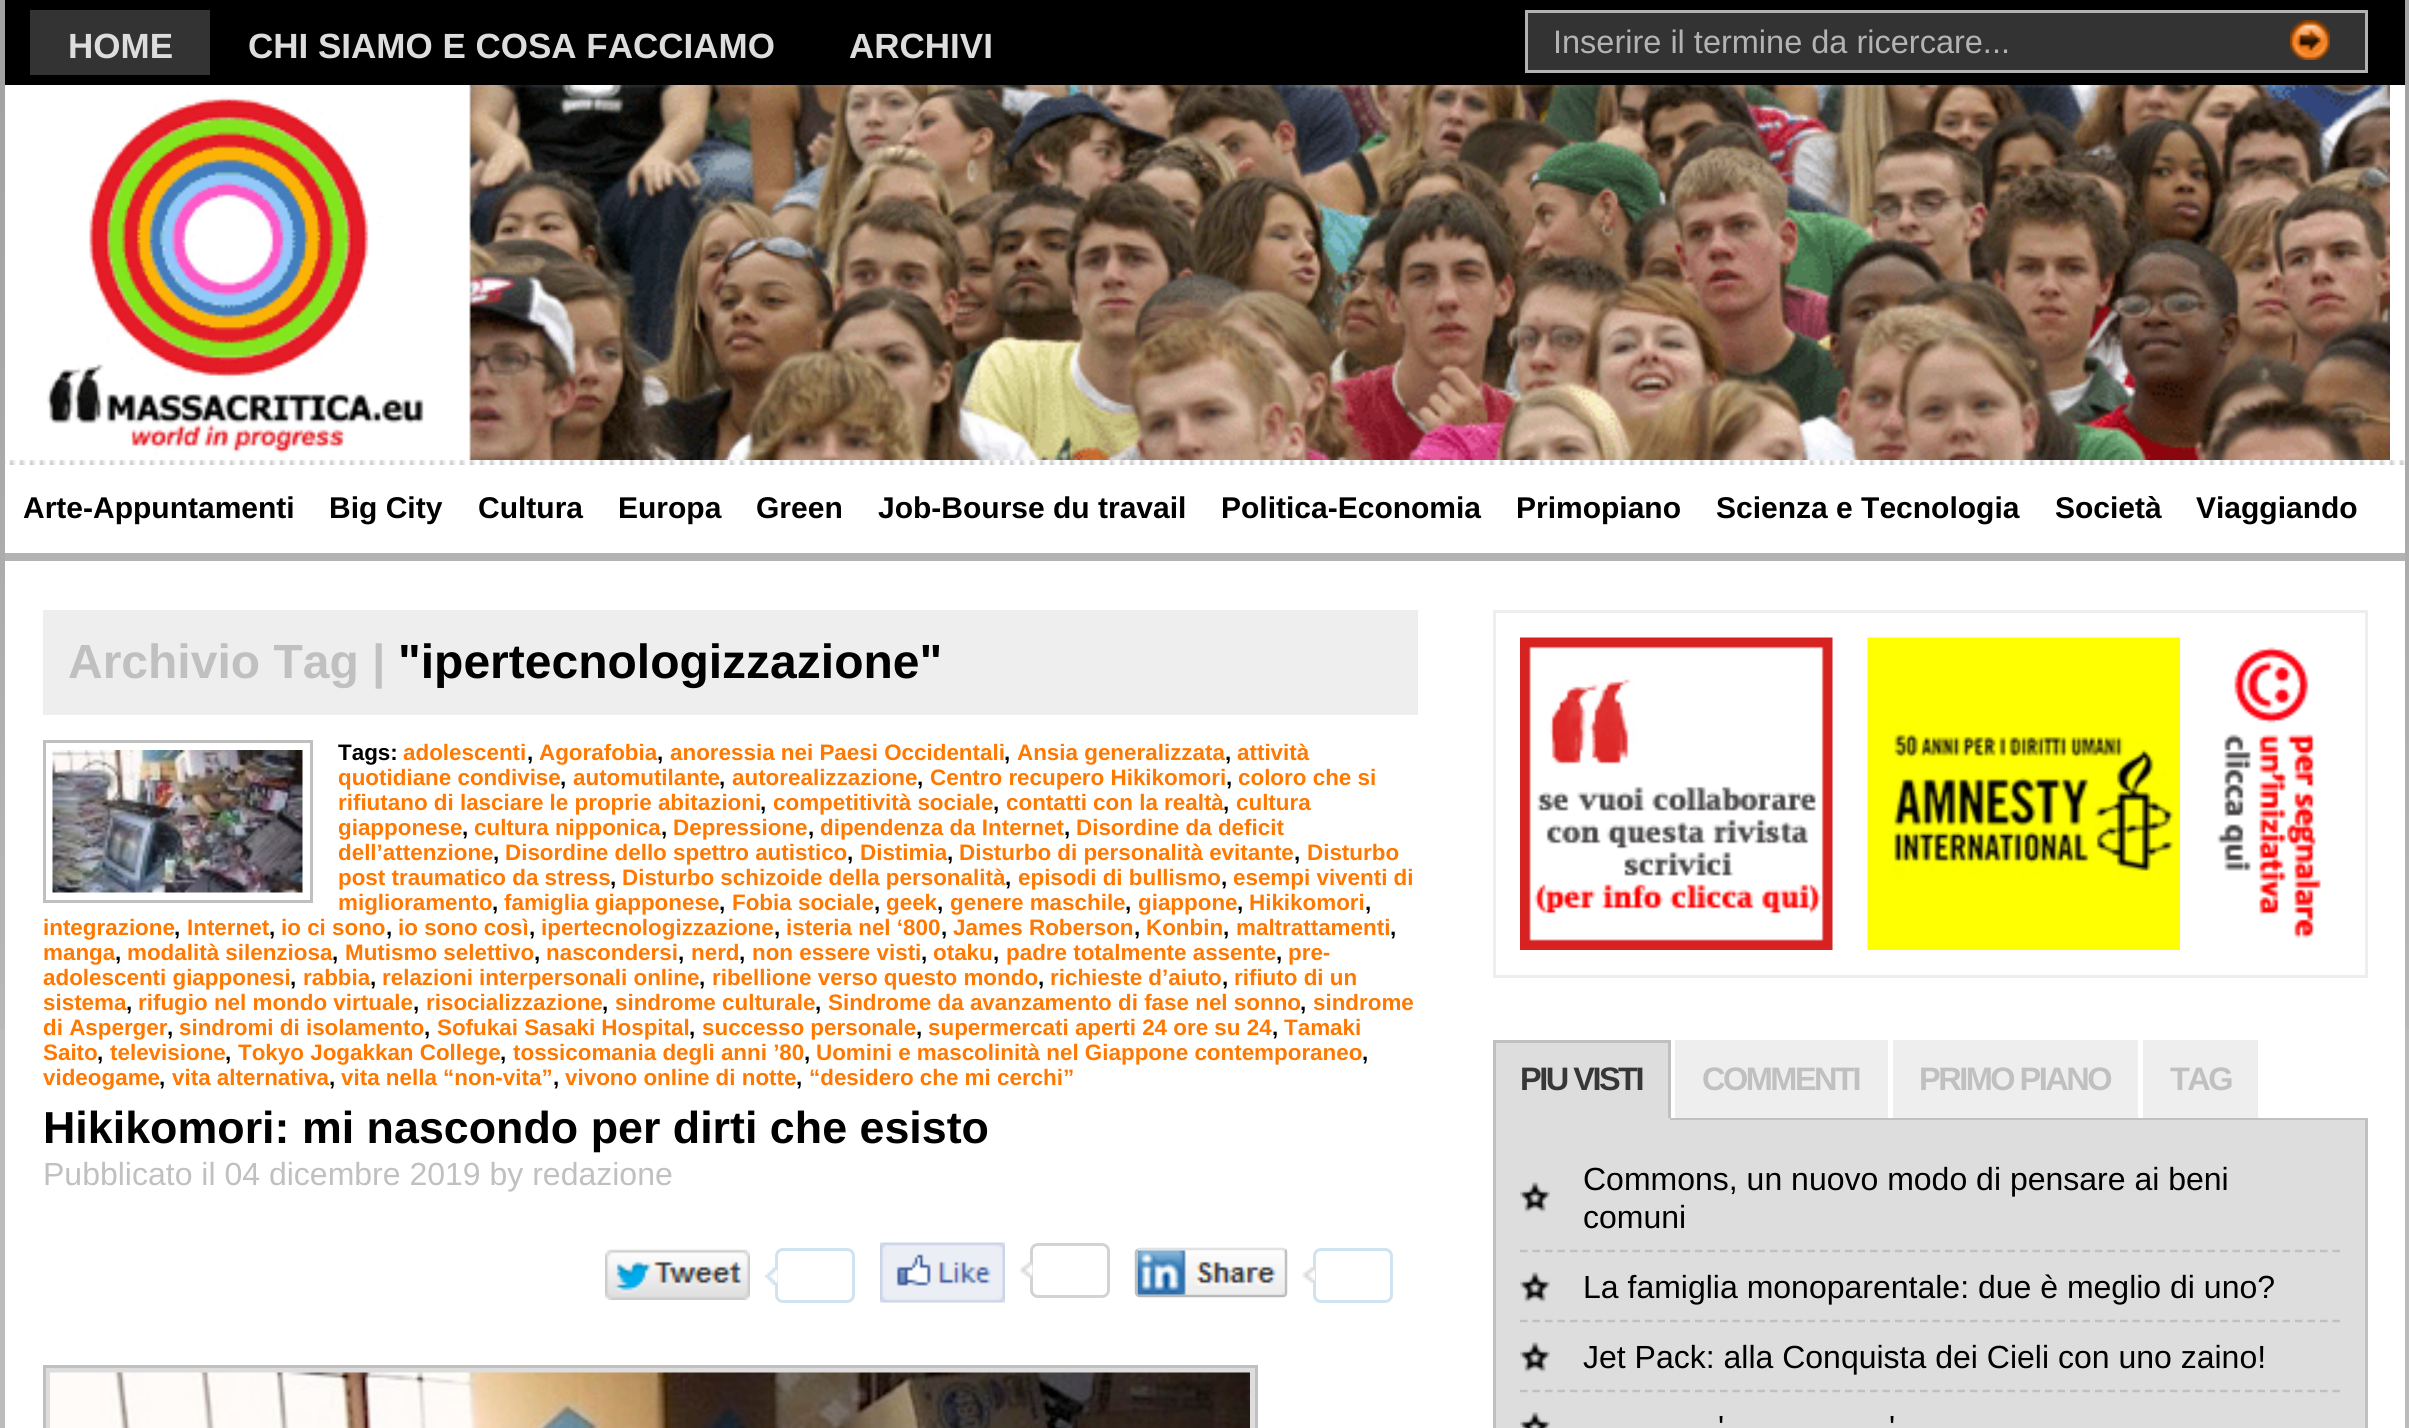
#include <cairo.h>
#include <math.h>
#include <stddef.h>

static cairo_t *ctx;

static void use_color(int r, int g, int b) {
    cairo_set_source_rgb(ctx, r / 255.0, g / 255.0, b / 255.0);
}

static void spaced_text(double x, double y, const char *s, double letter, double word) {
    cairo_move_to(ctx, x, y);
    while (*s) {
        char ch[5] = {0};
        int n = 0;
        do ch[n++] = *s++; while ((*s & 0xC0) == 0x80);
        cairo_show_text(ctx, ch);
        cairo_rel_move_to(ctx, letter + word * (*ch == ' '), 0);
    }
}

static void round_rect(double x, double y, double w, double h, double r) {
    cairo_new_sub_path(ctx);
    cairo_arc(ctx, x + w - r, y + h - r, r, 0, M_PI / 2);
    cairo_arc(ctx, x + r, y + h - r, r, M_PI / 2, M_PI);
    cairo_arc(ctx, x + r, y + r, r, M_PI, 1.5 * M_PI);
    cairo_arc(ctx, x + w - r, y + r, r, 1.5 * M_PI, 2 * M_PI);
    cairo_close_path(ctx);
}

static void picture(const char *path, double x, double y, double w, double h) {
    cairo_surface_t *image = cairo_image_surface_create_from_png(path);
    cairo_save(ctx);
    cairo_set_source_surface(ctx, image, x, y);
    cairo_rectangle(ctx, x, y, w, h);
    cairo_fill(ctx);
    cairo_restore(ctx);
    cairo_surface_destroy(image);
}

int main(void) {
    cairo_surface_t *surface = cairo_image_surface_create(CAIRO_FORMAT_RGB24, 2409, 1428);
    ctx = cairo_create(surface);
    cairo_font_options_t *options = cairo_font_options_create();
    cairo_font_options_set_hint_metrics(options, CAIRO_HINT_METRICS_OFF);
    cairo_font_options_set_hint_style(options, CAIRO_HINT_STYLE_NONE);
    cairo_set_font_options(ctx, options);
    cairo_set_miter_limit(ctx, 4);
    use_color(188, 188, 188);
    cairo_paint(ctx);
    picture("img1.png", 0, 0, 2409, 1029);
    use_color(255, 255, 255);
    cairo_rectangle(ctx, 5, 85, 2400, 1343);
    cairo_fill(ctx);
    use_color(0, 0, 0);
    cairo_rectangle(ctx, 5, 0, 2400, 85);
    cairo_fill(ctx);
    use_color(51, 51, 51);
    cairo_rectangle(ctx, 30, 10, 180, 65);
    cairo_fill(ctx);
    cairo_select_font_face(ctx, "Liberation Sans", CAIRO_FONT_SLANT_NORMAL, CAIRO_FONT_WEIGHT_BOLD);
    cairo_set_font_size(ctx, 35);
    use_color(221, 221, 221);
    cairo_move_to(ctx, 68, 58);
    cairo_show_text(ctx, "HOME");
    cairo_move_to(ctx, 248, 58);
    cairo_show_text(ctx, "CHI SIAMO E COSA FACCIAMO");
    cairo_move_to(ctx, 849, 58);
    cairo_show_text(ctx, "ARCHIVI");
    use_color(51, 51, 51);
    cairo_rectangle(ctx, 1526.5, 11.5, 840, 60);
    cairo_fill_preserve(ctx);
    use_color(179, 179, 179);
    cairo_set_line_width(ctx, 3);
    cairo_stroke(ctx);
    cairo_select_font_face(ctx, "Liberation Sans", CAIRO_FONT_SLANT_NORMAL, CAIRO_FONT_WEIGHT_NORMAL);
    cairo_set_font_size(ctx, 32.5);
    cairo_move_to(ctx, 1553, 53);
    cairo_show_text(ctx, "Inserire il termine da ricercare...");
    picture("img2.png", 2290, 20, 40, 40);
    picture("img3.png", 5, 460, 2400, 5);
    picture("img4.png", 47, 85, 2343, 375);
    cairo_rectangle(ctx, 5, 553, 2400, 8);
    cairo_fill(ctx);
    cairo_select_font_face(ctx, "Liberation Sans", CAIRO_FONT_SLANT_NORMAL, CAIRO_FONT_WEIGHT_BOLD);
    cairo_set_font_size(ctx, 30);
    use_color(0, 0, 0);
    cairo_move_to(ctx, 23, 518);
    cairo_show_text(ctx, "Arte-Appuntamenti");
    cairo_move_to(ctx, 329, 518);
    cairo_show_text(ctx, "Big City");
    cairo_move_to(ctx, 478, 518);
    cairo_show_text(ctx, "Cultura");
    cairo_move_to(ctx, 618, 518);
    cairo_show_text(ctx, "Europa");
    cairo_move_to(ctx, 756, 518);
    cairo_show_text(ctx, "Green");
    cairo_move_to(ctx, 878, 518);
    cairo_show_text(ctx, "Job-Bourse du travail");
    cairo_move_to(ctx, 1221, 518);
    cairo_show_text(ctx, "Politica-Economia");
    cairo_move_to(ctx, 1516, 518);
    cairo_show_text(ctx, "Primopiano");
    cairo_move_to(ctx, 1716, 518);
    cairo_show_text(ctx, "Scienza e Tecnologia");
    cairo_move_to(ctx, 2055, 518);
    cairo_show_text(ctx, "Società");
    cairo_move_to(ctx, 2196, 518);
    cairo_show_text(ctx, "Viaggiando");
    use_color(238, 238, 238);
    cairo_rectangle(ctx, 43, 610, 1375, 105);
    cairo_fill(ctx);
    cairo_set_font_size(ctx, 48);
    use_color(192, 192, 192);
    cairo_move_to(ctx, 68, 678);
    cairo_show_text(ctx, "Archivio Tag |");
    use_color(0, 0, 0);
    cairo_move_to(ctx, 398, 678);
    cairo_show_text(ctx, "\"ipertecnologizzazione\"");
    cairo_rectangle(ctx, 44.5, 741.5, 267, 160);
    use_color(192, 192, 192);
    cairo_stroke(ctx);
    picture("img5.png", 52, 750, 251, 143);
    cairo_set_font_size(ctx, 22.4);
    use_color(0, 0, 0);
    cairo_move_to(ctx, 338, 760);
    cairo_show_text(ctx, "Tags:");
    use_color(255, 120, 0);
    cairo_move_to(ctx, 403, 760);
    cairo_show_text(ctx, "adolescenti");
    use_color(0, 0, 0);
    cairo_move_to(ctx, 527, 760);
    cairo_show_text(ctx, ",");
    use_color(255, 120, 0);
    cairo_move_to(ctx, 539, 760);
    cairo_show_text(ctx, "Agorafobia");
    use_color(0, 0, 0);
    cairo_move_to(ctx, 657, 760);
    cairo_show_text(ctx, ",");
    use_color(255, 120, 0);
    cairo_move_to(ctx, 670, 760);
    cairo_show_text(ctx, "anoressia nei Paesi Occidentali");
    use_color(0, 0, 0);
    cairo_move_to(ctx, 1004, 760);
    cairo_show_text(ctx, ",");
    use_color(255, 120, 0);
    cairo_move_to(ctx, 1017, 760);
    cairo_show_text(ctx, "Ansia generalizzata");
    use_color(0, 0, 0);
    cairo_move_to(ctx, 1225, 760);
    cairo_show_text(ctx, ",");
    use_color(255, 120, 0);
    cairo_move_to(ctx, 1237, 760);
    cairo_show_text(ctx, "attività");
    cairo_move_to(ctx, 338, 785);
    cairo_show_text(ctx, "quotidiane condivise");
    use_color(0, 0, 0);
    cairo_move_to(ctx, 560, 785);
    cairo_show_text(ctx, ",");
    use_color(255, 120, 0);
    cairo_move_to(ctx, 573, 785);
    cairo_show_text(ctx, "automutilante");
    use_color(0, 0, 0);
    cairo_move_to(ctx, 719, 785);
    cairo_show_text(ctx, ",");
    use_color(255, 120, 0);
    cairo_move_to(ctx, 732, 785);
    cairo_show_text(ctx, "autorealizzazione");
    use_color(0, 0, 0);
    cairo_move_to(ctx, 917, 785);
    cairo_show_text(ctx, ",");
    use_color(255, 120, 0);
    cairo_move_to(ctx, 930, 785);
    cairo_show_text(ctx, "Centro recupero Hikikomori");
    use_color(0, 0, 0);
    cairo_move_to(ctx, 1226, 785);
    cairo_show_text(ctx, ",");
    use_color(255, 120, 0);
    cairo_move_to(ctx, 1238, 785);
    cairo_show_text(ctx, "coloro che si");
    cairo_move_to(ctx, 338, 810);
    cairo_show_text(ctx, "rifiutano di lasciare le proprie abitazioni");
    use_color(0, 0, 0);
    cairo_move_to(ctx, 760, 810);
    cairo_show_text(ctx, ",");
    use_color(255, 120, 0);
    cairo_move_to(ctx, 773, 810);
    cairo_show_text(ctx, "competitività sociale");
    use_color(0, 0, 0);
    cairo_move_to(ctx, 993, 810);
    cairo_show_text(ctx, ",");
    use_color(255, 120, 0);
    cairo_move_to(ctx, 1006, 810);
    cairo_show_text(ctx, "contatti con la realtà");
    use_color(0, 0, 0);
    cairo_move_to(ctx, 1223, 810);
    cairo_show_text(ctx, ",");
    use_color(255, 120, 0);
    cairo_move_to(ctx, 1236, 810);
    cairo_show_text(ctx, "cultura");
    cairo_move_to(ctx, 338, 835);
    cairo_show_text(ctx, "giapponese");
    use_color(0, 0, 0);
    cairo_move_to(ctx, 462, 835);
    cairo_show_text(ctx, ",");
    use_color(255, 120, 0);
    cairo_move_to(ctx, 474, 835);
    cairo_show_text(ctx, "cultura nipponica");
    use_color(0, 0, 0);
    cairo_move_to(ctx, 661, 835);
    cairo_show_text(ctx, ",");
    use_color(255, 120, 0);
    cairo_move_to(ctx, 673, 835);
    cairo_show_text(ctx, "Depressione");
    use_color(0, 0, 0);
    cairo_move_to(ctx, 808, 835);
    cairo_show_text(ctx, ",");
    use_color(255, 120, 0);
    cairo_move_to(ctx, 820, 835);
    cairo_show_text(ctx, "dipendenza da Internet");
    use_color(0, 0, 0);
    cairo_move_to(ctx, 1064, 835);
    cairo_show_text(ctx, ",");
    use_color(255, 120, 0);
    cairo_move_to(ctx, 1076, 835);
    cairo_show_text(ctx, "Disordine da deficit");
    cairo_move_to(ctx, 338, 860);
    cairo_show_text(ctx, "dell’attenzione");
    use_color(0, 0, 0);
    cairo_move_to(ctx, 493, 860);
    cairo_show_text(ctx, ",");
    use_color(255, 120, 0);
    cairo_move_to(ctx, 505, 860);
    cairo_show_text(ctx, "Disordine dello spettro autistico");
    use_color(0, 0, 0);
    cairo_move_to(ctx, 847, 860);
    cairo_show_text(ctx, ",");
    use_color(255, 120, 0);
    cairo_move_to(ctx, 860, 860);
    cairo_show_text(ctx, "Distimia");
    use_color(0, 0, 0);
    cairo_move_to(ctx, 947, 860);
    cairo_show_text(ctx, ",");
    use_color(255, 120, 0);
    cairo_move_to(ctx, 959, 860);
    cairo_show_text(ctx, "Disturbo di personalità evitante");
    use_color(0, 0, 0);
    cairo_move_to(ctx, 1294, 860);
    cairo_show_text(ctx, ",");
    use_color(255, 120, 0);
    cairo_move_to(ctx, 1307, 860);
    cairo_show_text(ctx, "Disturbo");
    cairo_move_to(ctx, 338, 885);
    cairo_show_text(ctx, "post traumatico da stress");
    use_color(0, 0, 0);
    cairo_move_to(ctx, 610, 885);
    cairo_show_text(ctx, ",");
    use_color(255, 120, 0);
    cairo_move_to(ctx, 622, 885);
    cairo_show_text(ctx, "Disturbo schizoide della personalità");
    use_color(0, 0, 0);
    cairo_move_to(ctx, 1005, 885);
    cairo_show_text(ctx, ",");
    use_color(255, 120, 0);
    cairo_move_to(ctx, 1018, 885);
    cairo_show_text(ctx, "episodi di bullismo");
    use_color(0, 0, 0);
    cairo_move_to(ctx, 1221, 885);
    cairo_show_text(ctx, ",");
    use_color(255, 120, 0);
    cairo_move_to(ctx, 1233, 885);
    cairo_show_text(ctx, "esempi viventi di");
    cairo_move_to(ctx, 338, 910);
    cairo_show_text(ctx, "miglioramento");
    use_color(0, 0, 0);
    cairo_move_to(ctx, 492, 910);
    cairo_show_text(ctx, ",");
    use_color(255, 120, 0);
    cairo_move_to(ctx, 504, 910);
    cairo_show_text(ctx, "famiglia giapponese");
    use_color(0, 0, 0);
    cairo_move_to(ctx, 719, 910);
    cairo_show_text(ctx, ",");
    use_color(255, 120, 0);
    cairo_move_to(ctx, 732, 910);
    cairo_show_text(ctx, "Fobia sociale");
    use_color(0, 0, 0);
    cairo_move_to(ctx, 874, 910);
    cairo_show_text(ctx, ",");
    use_color(255, 120, 0);
    cairo_move_to(ctx, 886, 910);
    cairo_show_text(ctx, "geek");
    use_color(0, 0, 0);
    cairo_move_to(ctx, 937, 910);
    cairo_show_text(ctx, ",");
    use_color(255, 120, 0);
    cairo_move_to(ctx, 950, 910);
    cairo_show_text(ctx, "genere maschile");
    use_color(0, 0, 0);
    cairo_move_to(ctx, 1125, 910);
    cairo_show_text(ctx, ",");
    use_color(255, 120, 0);
    cairo_move_to(ctx, 1138, 910);
    cairo_show_text(ctx, "giappone");
    use_color(0, 0, 0);
    cairo_move_to(ctx, 1237, 910);
    cairo_show_text(ctx, ",");
    use_color(255, 120, 0);
    cairo_move_to(ctx, 1249, 910);
    cairo_show_text(ctx, "Hikikomori");
    use_color(0, 0, 0);
    cairo_move_to(ctx, 1365, 910);
    cairo_show_text(ctx, ",");
    use_color(255, 120, 0);
    cairo_move_to(ctx, 43, 935);
    cairo_show_text(ctx, "integrazione");
    use_color(0, 0, 0);
    cairo_move_to(ctx, 174, 935);
    cairo_show_text(ctx, ",");
    use_color(255, 120, 0);
    cairo_move_to(ctx, 187, 935);
    cairo_show_text(ctx, "Internet");
    use_color(0, 0, 0);
    cairo_move_to(ctx, 269, 935);
    cairo_show_text(ctx, ",");
    use_color(255, 120, 0);
    cairo_move_to(ctx, 281, 935);
    cairo_show_text(ctx, "io ci sono");
    use_color(0, 0, 0);
    cairo_move_to(ctx, 386, 935);
    cairo_show_text(ctx, ",");
    use_color(255, 120, 0);
    cairo_move_to(ctx, 398, 935);
    cairo_show_text(ctx, "io sono così");
    use_color(0, 0, 0);
    cairo_move_to(ctx, 529, 935);
    cairo_show_text(ctx, ",");
    use_color(255, 120, 0);
    cairo_move_to(ctx, 541, 935);
    cairo_show_text(ctx, "ipertecnologizzazione");
    use_color(0, 0, 0);
    cairo_move_to(ctx, 774, 935);
    cairo_show_text(ctx, ",");
    use_color(255, 120, 0);
    cairo_move_to(ctx, 786, 935);
    cairo_show_text(ctx, "isteria nel ‘800");
    use_color(0, 0, 0);
    cairo_move_to(ctx, 941, 935);
    cairo_show_text(ctx, ",");
    use_color(255, 120, 0);
    cairo_move_to(ctx, 953, 935);
    cairo_show_text(ctx, "James Roberson");
    use_color(0, 0, 0);
    cairo_move_to(ctx, 1134, 935);
    cairo_show_text(ctx, ",");
    use_color(255, 120, 0);
    cairo_move_to(ctx, 1146, 935);
    cairo_show_text(ctx, "Konbin");
    use_color(0, 0, 0);
    cairo_move_to(ctx, 1223, 935);
    cairo_show_text(ctx, ",");
    use_color(255, 120, 0);
    cairo_move_to(ctx, 1236, 935);
    cairo_show_text(ctx, "maltrattamenti");
    use_color(0, 0, 0);
    cairo_move_to(ctx, 1390, 935);
    cairo_show_text(ctx, ",");
    use_color(255, 120, 0);
    cairo_move_to(ctx, 43, 960);
    cairo_show_text(ctx, "manga");
    use_color(0, 0, 0);
    cairo_move_to(ctx, 115, 960);
    cairo_show_text(ctx, ",");
    use_color(255, 120, 0);
    cairo_move_to(ctx, 127, 960);
    cairo_show_text(ctx, "modalità silenziosa");
    use_color(0, 0, 0);
    cairo_move_to(ctx, 332, 960);
    cairo_show_text(ctx, ",");
    use_color(255, 120, 0);
    cairo_move_to(ctx, 345, 960);
    cairo_show_text(ctx, "Mutismo selettivo");
    use_color(0, 0, 0);
    cairo_move_to(ctx, 534, 960);
    cairo_show_text(ctx, ",");
    use_color(255, 120, 0);
    cairo_move_to(ctx, 546, 960);
    cairo_show_text(ctx, "nascondersi");
    use_color(0, 0, 0);
    cairo_move_to(ctx, 678, 960);
    cairo_show_text(ctx, ",");
    use_color(255, 120, 0);
    cairo_move_to(ctx, 691, 960);
    cairo_show_text(ctx, "nerd");
    use_color(0, 0, 0);
    cairo_move_to(ctx, 739, 960);
    cairo_show_text(ctx, ",");
    use_color(255, 120, 0);
    cairo_move_to(ctx, 752, 960);
    cairo_show_text(ctx, "non essere visti");
    use_color(0, 0, 0);
    cairo_move_to(ctx, 921, 960);
    cairo_show_text(ctx, ",");
    use_color(255, 120, 0);
    cairo_move_to(ctx, 933, 960);
    cairo_show_text(ctx, "otaku");
    use_color(0, 0, 0);
    cairo_move_to(ctx, 993, 960);
    cairo_show_text(ctx, ",");
    use_color(255, 120, 0);
    cairo_move_to(ctx, 1006, 960);
    cairo_show_text(ctx, "padre totalmente assente");
    use_color(0, 0, 0);
    cairo_move_to(ctx, 1276, 960);
    cairo_show_text(ctx, ",");
    use_color(255, 120, 0);
    cairo_move_to(ctx, 1288, 960);
    cairo_show_text(ctx, "pre-");
    cairo_move_to(ctx, 43, 985);
    cairo_show_text(ctx, "adolescenti giapponesi");
    use_color(0, 0, 0);
    cairo_move_to(ctx, 290, 985);
    cairo_show_text(ctx, ",");
    use_color(255, 120, 0);
    cairo_move_to(ctx, 303, 985);
    cairo_show_text(ctx, "rabbia");
    use_color(0, 0, 0);
    cairo_move_to(ctx, 370, 985);
    cairo_show_text(ctx, ",");
    use_color(255, 120, 0);
    cairo_move_to(ctx, 382, 985);
    cairo_show_text(ctx, "relazioni interpersonali online");
    use_color(0, 0, 0);
    cairo_move_to(ctx, 699, 985);
    cairo_show_text(ctx, ",");
    use_color(255, 120, 0);
    cairo_move_to(ctx, 712, 985);
    cairo_show_text(ctx, "ribellione verso questo mondo");
    use_color(0, 0, 0);
    cairo_move_to(ctx, 1038, 985);
    cairo_show_text(ctx, ",");
    use_color(255, 120, 0);
    cairo_move_to(ctx, 1050, 985);
    cairo_show_text(ctx, "richieste d’aiuto");
    use_color(0, 0, 0);
    cairo_move_to(ctx, 1222, 985);
    cairo_show_text(ctx, ",");
    use_color(255, 120, 0);
    cairo_move_to(ctx, 1234, 985);
    cairo_show_text(ctx, "rifiuto di un");
    cairo_move_to(ctx, 43, 1010);
    cairo_show_text(ctx, "sistema");
    use_color(0, 0, 0);
    cairo_move_to(ctx, 126, 1010);
    cairo_show_text(ctx, ",");
    use_color(255, 120, 0);
    cairo_move_to(ctx, 138, 1010);
    cairo_show_text(ctx, "rifugio nel mondo virtuale");
    use_color(0, 0, 0);
    cairo_move_to(ctx, 413, 1010);
    cairo_show_text(ctx, ",");
    use_color(255, 120, 0);
    cairo_move_to(ctx, 426, 1010);
    cairo_show_text(ctx, "risocializzazione");
    use_color(0, 0, 0);
    cairo_move_to(ctx, 602, 1010);
    cairo_show_text(ctx, ",");
    use_color(255, 120, 0);
    cairo_move_to(ctx, 615, 1010);
    cairo_show_text(ctx, "sindrome culturale");
    use_color(0, 0, 0);
    cairo_move_to(ctx, 815, 1010);
    cairo_show_text(ctx, ",");
    use_color(255, 120, 0);
    cairo_move_to(ctx, 828, 1010);
    cairo_show_text(ctx, "Sindrome da avanzamento di fase nel sonno");
    use_color(0, 0, 0);
    cairo_move_to(ctx, 1300, 1010);
    cairo_show_text(ctx, ",");
    use_color(255, 120, 0);
    cairo_move_to(ctx, 1313, 1010);
    cairo_show_text(ctx, "sindrome");
    cairo_move_to(ctx, 43, 1035);
    cairo_show_text(ctx, "di Asperger");
    use_color(0, 0, 0);
    cairo_move_to(ctx, 167, 1035);
    cairo_show_text(ctx, ",");
    use_color(255, 120, 0);
    cairo_move_to(ctx, 179, 1035);
    cairo_show_text(ctx, "sindromi di isolamento");
    use_color(0, 0, 0);
    cairo_move_to(ctx, 424, 1035);
    cairo_show_text(ctx, ",");
    use_color(255, 120, 0);
    cairo_move_to(ctx, 437, 1035);
    cairo_show_text(ctx, "Sofukai Sasaki Hospital");
    use_color(0, 0, 0);
    cairo_move_to(ctx, 689, 1035);
    cairo_show_text(ctx, ",");
    use_color(255, 120, 0);
    cairo_move_to(ctx, 702, 1035);
    cairo_show_text(ctx, "successo personale");
    use_color(0, 0, 0);
    cairo_move_to(ctx, 916, 1035);
    cairo_show_text(ctx, ",");
    use_color(255, 120, 0);
    cairo_move_to(ctx, 928, 1035);
    cairo_show_text(ctx, "supermercati aperti 24 ore su 24");
    use_color(0, 0, 0);
    cairo_move_to(ctx, 1272, 1035);
    cairo_show_text(ctx, ",");
    use_color(255, 120, 0);
    cairo_move_to(ctx, 1284, 1035);
    cairo_show_text(ctx, "Tamaki");
    cairo_move_to(ctx, 43, 1060);
    cairo_show_text(ctx, "Saito");
    use_color(0, 0, 0);
    cairo_move_to(ctx, 97, 1060);
    cairo_show_text(ctx, ",");
    use_color(255, 120, 0);
    cairo_move_to(ctx, 110, 1060);
    cairo_show_text(ctx, "televisione");
    use_color(0, 0, 0);
    cairo_move_to(ctx, 225, 1060);
    cairo_show_text(ctx, ",");
    use_color(255, 120, 0);
    cairo_move_to(ctx, 238, 1060);
    cairo_show_text(ctx, "Tokyo Jogakkan College");
    use_color(0, 0, 0);
    cairo_move_to(ctx, 500, 1060);
    cairo_show_text(ctx, ",");
    use_color(255, 120, 0);
    cairo_move_to(ctx, 513, 1060);
    cairo_show_text(ctx, "tossicomania degli anni ’80");
    use_color(0, 0, 0);
    cairo_move_to(ctx, 804, 1060);
    cairo_show_text(ctx, ",");
    use_color(255, 120, 0);
    cairo_move_to(ctx, 816, 1060);
    cairo_show_text(ctx, "Uomini e mascolinità nel Giappone contemporaneo");
    use_color(0, 0, 0);
    cairo_move_to(ctx, 1362, 1060);
    cairo_show_text(ctx, ",");
    use_color(255, 120, 0);
    cairo_move_to(ctx, 43, 1085);
    cairo_show_text(ctx, "videogame");
    use_color(0, 0, 0);
    cairo_move_to(ctx, 159, 1085);
    cairo_show_text(ctx, ",");
    use_color(255, 120, 0);
    cairo_move_to(ctx, 172, 1085);
    cairo_show_text(ctx, "vita alternativa");
    use_color(0, 0, 0);
    cairo_move_to(ctx, 329, 1085);
    cairo_show_text(ctx, ",");
    use_color(255, 120, 0);
    cairo_move_to(ctx, 341, 1085);
    cairo_show_text(ctx, "vita nella “non-vita”");
    use_color(0, 0, 0);
    cairo_move_to(ctx, 553, 1085);
    cairo_show_text(ctx, ",");
    use_color(255, 120, 0);
    cairo_move_to(ctx, 565, 1085);
    cairo_show_text(ctx, "vivono online di notte");
    use_color(0, 0, 0);
    cairo_move_to(ctx, 796, 1085);
    cairo_show_text(ctx, ",");
    use_color(255, 120, 0);
    cairo_move_to(ctx, 809, 1085);
    cairo_show_text(ctx, "“desidero che mi cerchi”");
    cairo_set_font_size(ctx, 44.8);
    use_color(0, 0, 0);
    cairo_move_to(ctx, 43, 1143);
    cairo_show_text(ctx, "Hikikomori: mi nascondo per dirti che esisto");
    cairo_select_font_face(ctx, "Liberation Sans", CAIRO_FONT_SLANT_NORMAL, CAIRO_FONT_WEIGHT_NORMAL);
    cairo_set_font_size(ctx, 32);
    use_color(192, 192, 192);
    cairo_move_to(ctx, 43, 1185);
    cairo_show_text(ctx, "Pubblicato il 04 dicembre 2019 by redazione");
    picture("img6.png", 605, 1249, 145, 51);
    round_rect(776.5, 1249.5, 77, 52, 6.5);
    use_color(207, 227, 240);
    cairo_stroke(ctx);
    picture("img7.png", 765, 1267, 13, 18);
    picture("img8.png", 880, 1242, 125, 61);
    round_rect(1031.5, 1244.5, 77, 52, 6.5);
    use_color(211, 211, 211);
    cairo_stroke(ctx);
    picture("img9.png", 1020, 1262, 13, 17);
    picture("img10.png", 1137, 1249, 149, 47);
    cairo_new_path(ctx);
    cairo_move_to(ctx, 1137.5, 1250);
    cairo_curve_to(ctx, 1138, 1249, 1139, 1249, 1140, 1249);
    cairo_line_to(ctx, 1282.5, 1249);
    cairo_curve_to(ctx, 1283.5, 1249, 1284.5, 1249, 1285, 1250);
    use_color(226, 226, 226);
    cairo_set_line_width(ctx, 2.5);
    cairo_stroke(ctx);
    cairo_new_path(ctx);
    cairo_move_to(ctx, 1285, 1250);
    cairo_curve_to(ctx, 1286, 1250.5, 1286, 1251.5, 1286, 1252.5);
    cairo_line_to(ctx, 1286, 1292.5);
    cairo_curve_to(ctx, 1286, 1293.5, 1286, 1294.5, 1285, 1295);
    use_color(191, 191, 191);
    cairo_stroke(ctx);
    cairo_new_path(ctx);
    cairo_move_to(ctx, 1285, 1295);
    cairo_curve_to(ctx, 1284.5, 1296, 1283.5, 1296, 1282.5, 1296);
    cairo_line_to(ctx, 1140, 1296);
    cairo_curve_to(ctx, 1139, 1296, 1138, 1296, 1137.5, 1295);
    use_color(185, 185, 185);
    cairo_stroke(ctx);
    cairo_new_path(ctx);
    cairo_move_to(ctx, 1137.5, 1295);
    cairo_curve_to(ctx, 1136.5, 1294.5, 1136, 1293.5, 1136, 1292.5);
    cairo_line_to(ctx, 1136, 1252.5);
    cairo_curve_to(ctx, 1136, 1251.5, 1136.5, 1250.5, 1137.5, 1250);
    use_color(191, 191, 191);
    cairo_stroke(ctx);
    round_rect(1314.5, 1249.5, 77, 52, 6.5);
    use_color(207, 227, 240);
    cairo_set_line_width(ctx, 3);
    cairo_stroke(ctx);
    picture("img11.png", 1302, 1267, 13, 17);
    use_color(221, 221, 221);
    cairo_rectangle(ctx, 44.5, 1366.5, 1212, 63);
    cairo_fill_preserve(ctx);
    use_color(192, 192, 192);
    cairo_stroke(ctx);
    picture("img12.png", 50, 1372, 1200, 56);
    cairo_rectangle(ctx, 1494.5, 611.5, 872, 365);
    use_color(238, 238, 238);
    cairo_stroke(ctx);
    picture("img13.png", 1520, 637, 313, 313);
    picture("img14.png", 1867, 637, 313, 313);
    picture("img15.png", 2217, 647, 104, 292);
    use_color(192, 192, 192);
    cairo_rectangle(ctx, 1671, 1118, 697, 2);
    cairo_fill(ctx);
    use_color(221, 221, 221);
    cairo_rectangle(ctx, 1496, 1043, 172, 75);
    cairo_fill(ctx);
    use_color(192, 192, 192);
    cairo_rectangle(ctx, 1493, 1040, 177, 3);
    cairo_fill(ctx);
    cairo_rectangle(ctx, 1668, 1040, 3, 80);
    cairo_fill(ctx);
    use_color(221, 221, 221);
    cairo_rectangle(ctx, 1493, 1118, 177, 2);
    cairo_fill(ctx);
    use_color(192, 192, 192);
    cairo_rectangle(ctx, 1493, 1040, 3, 388);
    cairo_fill(ctx);
    cairo_select_font_face(ctx, "Liberation Sans", CAIRO_FONT_SLANT_NORMAL, CAIRO_FONT_WEIGHT_BOLD);
    cairo_set_font_size(ctx, 32.5);
    use_color(55, 55, 55);
    spaced_text(1520, 1090, "PIU VISTI", -2.5, 0);
    use_color(238, 238, 238);
    cairo_rectangle(ctx, 1675, 1040, 213, 78);
    cairo_fill(ctx);
    use_color(192, 192, 192);
    spaced_text(1702, 1090, "COMMENTI", -2.5, 0);
    use_color(238, 238, 238);
    cairo_rectangle(ctx, 1893, 1040, 245, 78);
    cairo_fill(ctx);
    use_color(192, 192, 192);
    spaced_text(1919, 1090, "PRIMO PIANO", -2.5, 0);
    use_color(238, 238, 238);
    cairo_rectangle(ctx, 2143, 1040, 115, 78);
    cairo_fill(ctx);
    use_color(192, 192, 192);
    spaced_text(2170, 1090, "TAG", -2.5, 0);
    use_color(221, 221, 221);
    cairo_rectangle(ctx, 1496, 1120, 869, 308);
    cairo_fill(ctx);
    use_color(192, 192, 192);
    cairo_rectangle(ctx, 2365, 1120, 3, 308);
    cairo_fill(ctx);
    picture("img16.png", 1520, 1182, 30, 31);
    cairo_new_path(ctx);
    cairo_move_to(ctx, 1520, 1251);
    cairo_line_to(ctx, 2340, 1251);
    cairo_set_line_width(ctx, 2.5);
    cairo_set_dash(ctx, (double[]){7.5, 5}, 2, 0);
    cairo_stroke(ctx);
    cairo_select_font_face(ctx, "Liberation Sans", CAIRO_FONT_SLANT_NORMAL, CAIRO_FONT_WEIGHT_NORMAL);
    cairo_set_font_size(ctx, 32);
    use_color(0, 0, 0);
    cairo_move_to(ctx, 1583, 1190);
    cairo_show_text(ctx, "Commons, un nuovo modo di pensare ai beni");
    cairo_move_to(ctx, 1583, 1228);
    cairo_show_text(ctx, "comuni");
    picture("img16.png", 1520, 1272, 30, 31);
    cairo_new_path(ctx);
    cairo_move_to(ctx, 1520, 1321);
    cairo_line_to(ctx, 2340, 1321);
    use_color(192, 192, 192);
    cairo_stroke(ctx);
    use_color(0, 0, 0);
    cairo_move_to(ctx, 1583, 1298);
    cairo_show_text(ctx, "La famiglia monoparentale: due è meglio di uno?");
    picture("img16.png", 1520, 1342, 30, 31);
    cairo_new_path(ctx);
    cairo_move_to(ctx, 1520, 1391);
    cairo_line_to(ctx, 2340, 1391);
    use_color(192, 192, 192);
    cairo_stroke(ctx);
    use_color(0, 0, 0);
    cairo_move_to(ctx, 1583, 1368);
    cairo_show_text(ctx, "Jet Pack: alla Conquista dei Cieli con uno zaino!");
    picture("img17.png", 1520, 1412, 30, 16);
    cairo_move_to(ctx, 1718, 1438);
    cairo_show_text(ctx, "'");
    cairo_move_to(ctx, 1889, 1438);
    cairo_show_text(ctx, "'");
    cairo_surface_write_to_png(surface, "result.png");
    cairo_font_options_destroy(options);
    cairo_destroy(ctx);
    cairo_surface_destroy(surface);
    return 0;
}
